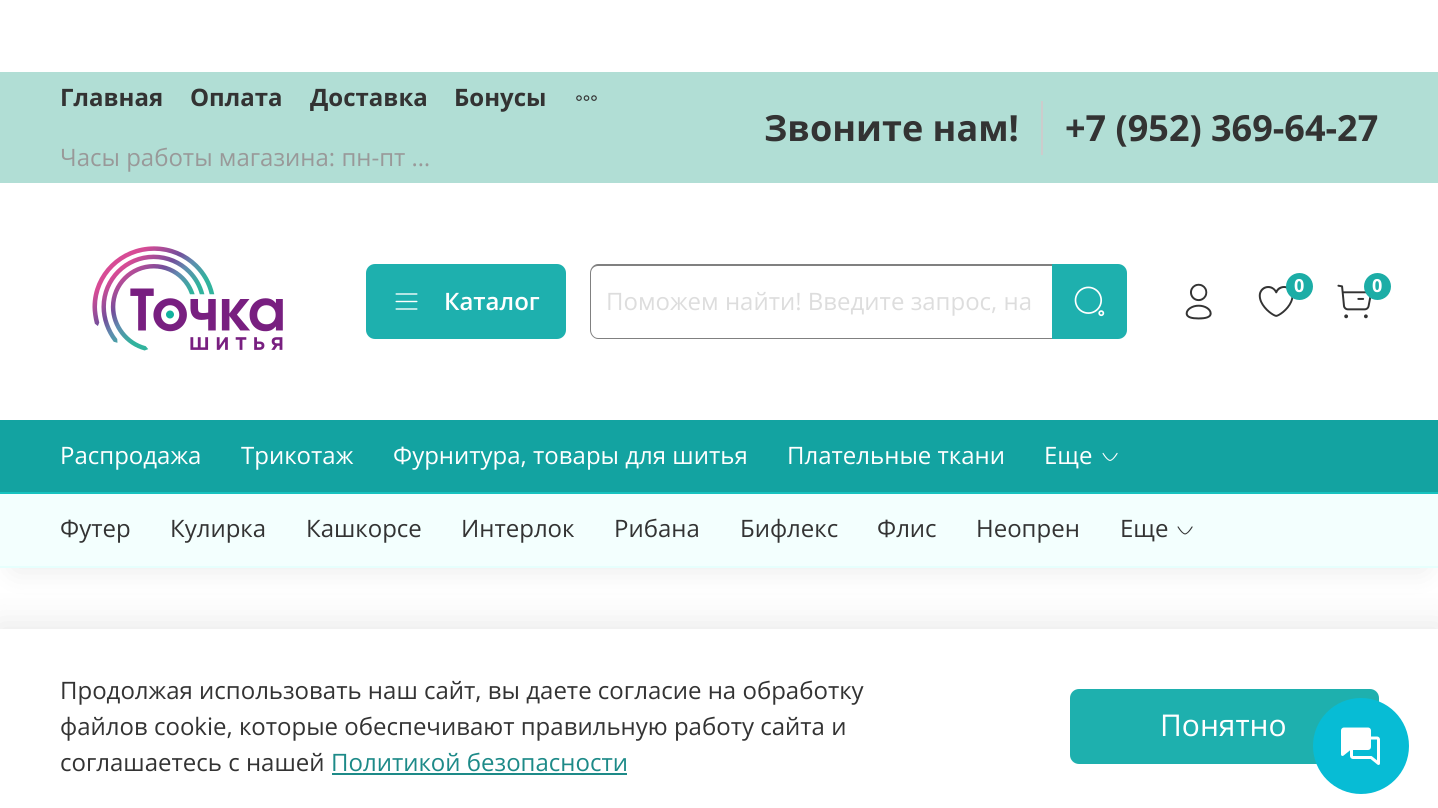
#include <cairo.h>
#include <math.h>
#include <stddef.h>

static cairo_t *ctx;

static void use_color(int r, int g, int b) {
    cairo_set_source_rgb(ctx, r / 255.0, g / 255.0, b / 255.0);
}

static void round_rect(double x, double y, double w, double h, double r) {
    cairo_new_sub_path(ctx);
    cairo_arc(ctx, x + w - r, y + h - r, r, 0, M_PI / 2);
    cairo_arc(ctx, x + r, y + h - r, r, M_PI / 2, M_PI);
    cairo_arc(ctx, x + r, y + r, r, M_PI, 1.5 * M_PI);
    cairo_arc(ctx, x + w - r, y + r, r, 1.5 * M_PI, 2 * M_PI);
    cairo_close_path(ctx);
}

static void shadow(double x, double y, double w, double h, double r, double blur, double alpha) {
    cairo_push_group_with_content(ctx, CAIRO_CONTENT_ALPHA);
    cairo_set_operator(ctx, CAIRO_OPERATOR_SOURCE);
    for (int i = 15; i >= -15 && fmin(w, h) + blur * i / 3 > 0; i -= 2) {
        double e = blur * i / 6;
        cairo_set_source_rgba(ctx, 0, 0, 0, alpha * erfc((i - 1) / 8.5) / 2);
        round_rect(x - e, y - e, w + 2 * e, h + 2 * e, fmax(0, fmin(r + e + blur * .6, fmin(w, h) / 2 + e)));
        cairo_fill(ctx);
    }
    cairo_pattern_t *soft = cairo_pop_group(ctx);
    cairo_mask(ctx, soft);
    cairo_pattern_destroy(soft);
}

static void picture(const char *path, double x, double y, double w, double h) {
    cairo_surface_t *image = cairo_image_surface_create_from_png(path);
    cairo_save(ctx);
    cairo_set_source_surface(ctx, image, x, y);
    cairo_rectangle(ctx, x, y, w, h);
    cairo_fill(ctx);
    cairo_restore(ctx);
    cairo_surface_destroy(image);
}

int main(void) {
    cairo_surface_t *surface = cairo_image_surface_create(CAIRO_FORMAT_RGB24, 1438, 808);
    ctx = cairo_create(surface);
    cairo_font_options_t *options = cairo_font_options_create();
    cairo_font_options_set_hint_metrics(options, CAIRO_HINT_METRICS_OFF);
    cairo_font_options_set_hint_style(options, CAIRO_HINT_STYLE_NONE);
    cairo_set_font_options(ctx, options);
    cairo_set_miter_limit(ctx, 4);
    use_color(255, 255, 255);
    cairo_paint(ctx);
    use_color(177, 222, 213);
    cairo_rectangle(ctx, 0, 72, 1438, 111);
    cairo_fill(ctx);
    cairo_select_font_face(ctx, "Open Sans", CAIRO_FONT_SLANT_NORMAL, CAIRO_FONT_WEIGHT_BOLD);
    cairo_set_font_size(ctx, 24);
    use_color(51, 51, 51);
    cairo_move_to(ctx, 60, 106);
    cairo_show_text(ctx, "Главная");
    cairo_move_to(ctx, 190, 106);
    cairo_show_text(ctx, "Оплата");
    cairo_move_to(ctx, 310, 106);
    cairo_show_text(ctx, "Доставка");
    cairo_move_to(ctx, 454, 106);
    cairo_show_text(ctx, "Бонусы");
    picture("img1.png", 576, 95, 21, 6);
    use_color(204, 204, 204);
    cairo_rectangle(ctx, 1041, 101, 2, 54);
    cairo_fill(ctx);
    cairo_set_font_size(ctx, 36);
    use_color(51, 51, 51);
    cairo_move_to(ctx, 764, 141);
    cairo_show_text(ctx, "Звоните нам!");
    cairo_move_to(ctx, 1065, 141);
    cairo_show_text(ctx, "+7 (952) 369-64-27");
    cairo_select_font_face(ctx, "Open Sans", CAIRO_FONT_SLANT_NORMAL, CAIRO_FONT_WEIGHT_NORMAL);
    cairo_set_font_size(ctx, 24);
    use_color(153, 153, 153);
    cairo_move_to(ctx, 60, 166);
    cairo_show_text(ctx, "Часы работы магазина: пн-пт …");
    picture("img2.png", 92, 246, 191, 105);
    picture("img3.png", 1185, 283, 27, 37);
    picture("img4.png", 1258, 286, 36, 31);
    use_color(28, 173, 166);
    cairo_arc(ctx, 1299.5, 286.5, 13.5, 0, 2 * M_PI);
    cairo_fill(ctx);
    cairo_select_font_face(ctx, "Open Sans", CAIRO_FONT_SLANT_NORMAL, CAIRO_FONT_WEIGHT_BOLD);
    cairo_set_font_size(ctx, 18);
    use_color(255, 255, 255);
    cairo_move_to(ctx, 1294, 292);
    cairo_show_text(ctx, "0");
    picture("img5.png", 1337, 284, 35, 35);
    use_color(28, 173, 166);
    cairo_arc(ctx, 1377.5, 286.5, 13.5, 0, 2 * M_PI);
    cairo_fill(ctx);
    use_color(255, 255, 255);
    cairo_move_to(ctx, 1372, 292);
    cairo_show_text(ctx, "0");
    use_color(30, 176, 174);
    round_rect(366, 264, 200, 75, 9);
    cairo_fill(ctx);
    picture("img6.png", 395, 293, 23, 17);
    cairo_select_font_face(ctx, "Open Sans SemiBold", CAIRO_FONT_SLANT_NORMAL, CAIRO_FONT_WEIGHT_NORMAL);
    cairo_set_font_size(ctx, 24);
    use_color(255, 255, 255);
    cairo_move_to(ctx, 444, 310);
    cairo_show_text(ctx, "Каталог");
    use_color(128, 128, 128);
    cairo_set_fill_rule(ctx, CAIRO_FILL_RULE_EVEN_ODD);
    cairo_new_path(ctx);
    cairo_move_to(ctx, 598, 264);
    cairo_line_to(ctx, 1052, 264);
    cairo_line_to(ctx, 1052, 339);
    cairo_line_to(ctx, 598, 339);
    cairo_curve_to(ctx, 594, 339, 590, 335, 590, 330);
    cairo_line_to(ctx, 590, 273);
    cairo_curve_to(ctx, 590, 268, 594, 264, 598, 264);
    cairo_close_path(ctx);
    cairo_move_to(ctx, 598, 266);
    cairo_line_to(ctx, 1052, 266);
    cairo_line_to(ctx, 1052, 338);
    cairo_line_to(ctx, 598, 338);
    cairo_curve_to(ctx, 594, 338, 591, 334, 591, 330);
    cairo_line_to(ctx, 591, 273);
    cairo_curve_to(ctx, 591, 269, 594, 266, 598, 266);
    cairo_close_path(ctx);
    cairo_fill(ctx);
    cairo_select_font_face(ctx, "Open Sans", CAIRO_FONT_SLANT_NORMAL, CAIRO_FONT_WEIGHT_NORMAL);
    use_color(221, 221, 221);
    cairo_move_to(ctx, 606, 310);
    cairo_show_text(ctx, "Поможем найти! Введите запрос, на");
    use_color(30, 176, 174);
    cairo_new_path(ctx);
    cairo_move_to(ctx, 1052, 264);
    cairo_line_to(ctx, 1118, 264);
    cairo_curve_to(ctx, 1123, 264, 1127, 268, 1127, 273);
    cairo_line_to(ctx, 1127, 330);
    cairo_curve_to(ctx, 1127, 335, 1123, 339, 1118, 339);
    cairo_line_to(ctx, 1052, 339);
    cairo_close_path(ctx);
    cairo_fill(ctx);
    picture("img7.png", 1074, 286, 31, 31);
    use_color(19, 163, 161);
    cairo_rectangle(ctx, 0, 420, 1438, 72);
    cairo_fill(ctx);
    use_color(23, 194, 191);
    cairo_rectangle(ctx, 0, 492, 1438, 2);
    cairo_fill(ctx);
    use_color(255, 255, 255);
    cairo_move_to(ctx, 60, 464);
    cairo_show_text(ctx, "Распродажа");
    cairo_move_to(ctx, 241, 464);
    cairo_show_text(ctx, "Трикотаж");
    cairo_move_to(ctx, 393, 464);
    cairo_show_text(ctx, "Фурнитура, товары для шитья");
    cairo_move_to(ctx, 787, 464);
    cairo_show_text(ctx, "Плательные ткани");
    cairo_move_to(ctx, 1044, 464);
    cairo_show_text(ctx, "Еще");
    picture("img8.png", 1102, 452, 16, 9);
    use_color(0, 0, 0);
    shadow(15, 524, 1409, 43, 0, 15, 0.1);
    use_color(243, 255, 254);
    cairo_rectangle(ctx, 0, 494, 1438, 72);
    cairo_fill(ctx);
    use_color(230, 255, 253);
    cairo_rectangle(ctx, 0, 566, 1438, 2);
    cairo_fill(ctx);
    use_color(51, 51, 51);
    cairo_move_to(ctx, 60, 537);
    cairo_show_text(ctx, "Футер");
    cairo_move_to(ctx, 170, 537);
    cairo_show_text(ctx, "Кулирка");
    cairo_move_to(ctx, 306, 537);
    cairo_show_text(ctx, "Кашкорсе");
    cairo_move_to(ctx, 461, 537);
    cairo_show_text(ctx, "Интерлок");
    cairo_move_to(ctx, 614, 537);
    cairo_show_text(ctx, "Рибана");
    cairo_move_to(ctx, 740, 537);
    cairo_show_text(ctx, "Бифлекс");
    cairo_move_to(ctx, 877, 537);
    cairo_show_text(ctx, "Флис");
    cairo_move_to(ctx, 976, 537);
    cairo_show_text(ctx, "Неопрен");
    cairo_move_to(ctx, 1120, 537);
    cairo_show_text(ctx, "Еще");
    picture("img9.png", 1177, 526, 16, 9);
    use_color(0, 0, 0);
    shadow(-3, 624, 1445, 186, 0, 17, 0.09);
    use_color(255, 255, 255);
    cairo_rectangle(ctx, 0, 629, 1438, 179);
    cairo_fill(ctx);
    use_color(51, 51, 51);
    cairo_move_to(ctx, 60, 699);
    cairo_show_text(ctx, "Продолжая использовать наш сайт, вы даете согласие на обработку");
    cairo_move_to(ctx, 60, 735);
    cairo_show_text(ctx, "файлов cookie, которые обеспечивают правильную работу сайта и");
    cairo_move_to(ctx, 60, 771);
    cairo_show_text(ctx, "соглашаетесь с нашей");
    use_color(29, 138, 136);
    cairo_move_to(ctx, 331, 771);
    cairo_show_text(ctx, "Политикой безопасности");
    cairo_rectangle(ctx, 332, 773, 295, 2);
    cairo_fill(ctx);
    use_color(30, 176, 174);
    round_rect(1070, 689, 309, 75, 9);
    cairo_fill(ctx);
    cairo_set_font_size(ctx, 30);
    use_color(255, 255, 255);
    cairo_move_to(ctx, 1160, 736);
    cairo_show_text(ctx, "Понятно");
    use_color(7, 188, 213);
    cairo_new_path(ctx);
    cairo_arc(ctx, 1361, 746, 48, 0, 2 * M_PI);
    cairo_fill(ctx);
    picture("img10.png", 1341, 727, 39, 38);
    cairo_surface_write_to_png(surface, "result.png");
    cairo_font_options_destroy(options);
    cairo_destroy(ctx);
    cairo_surface_destroy(surface);
    return 0;
}
